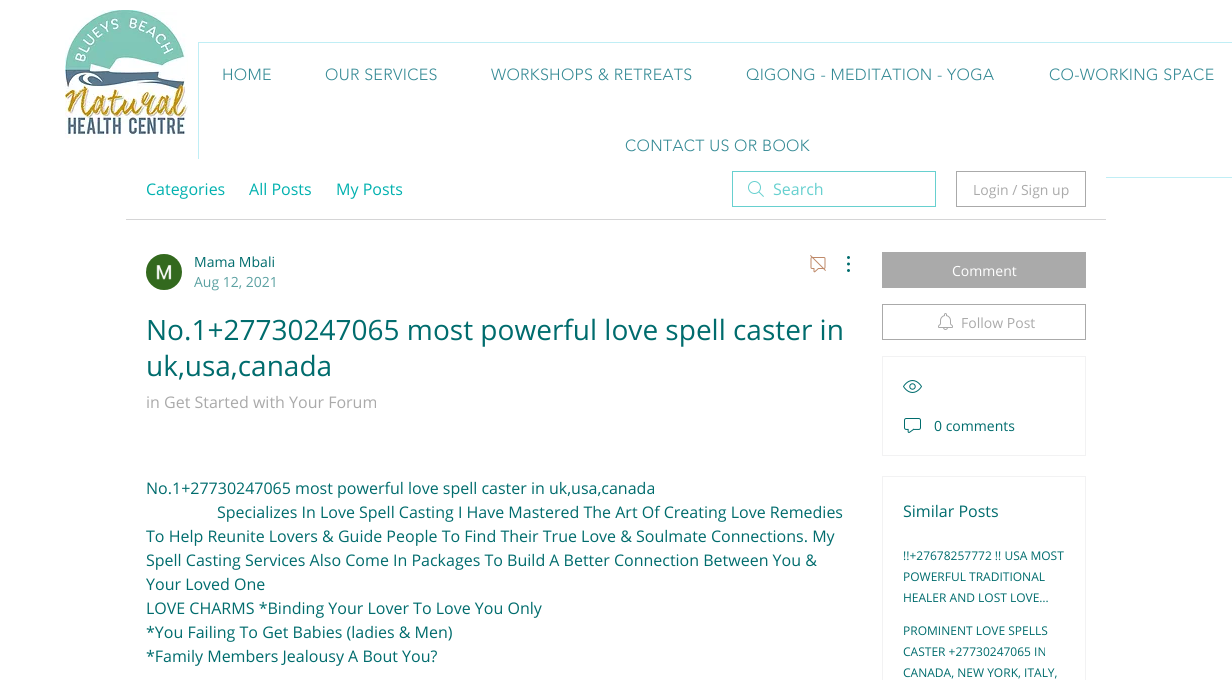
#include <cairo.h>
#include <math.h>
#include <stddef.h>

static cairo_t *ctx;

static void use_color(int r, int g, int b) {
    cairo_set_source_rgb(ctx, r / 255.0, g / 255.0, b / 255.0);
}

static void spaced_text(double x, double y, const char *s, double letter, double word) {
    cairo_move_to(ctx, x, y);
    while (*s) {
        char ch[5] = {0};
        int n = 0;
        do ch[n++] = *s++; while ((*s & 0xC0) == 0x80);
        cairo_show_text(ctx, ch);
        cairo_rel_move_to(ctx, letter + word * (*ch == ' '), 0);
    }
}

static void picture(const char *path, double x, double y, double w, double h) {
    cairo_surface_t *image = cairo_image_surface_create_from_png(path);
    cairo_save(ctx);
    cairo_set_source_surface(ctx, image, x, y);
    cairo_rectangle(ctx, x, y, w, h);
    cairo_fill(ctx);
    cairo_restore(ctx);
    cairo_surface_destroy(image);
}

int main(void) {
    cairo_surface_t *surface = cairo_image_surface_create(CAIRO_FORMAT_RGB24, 1232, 680);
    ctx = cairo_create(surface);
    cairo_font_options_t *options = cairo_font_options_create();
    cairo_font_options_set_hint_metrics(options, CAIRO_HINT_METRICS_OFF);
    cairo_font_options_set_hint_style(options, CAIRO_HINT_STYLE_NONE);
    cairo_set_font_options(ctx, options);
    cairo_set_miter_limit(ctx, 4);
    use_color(255, 255, 255);
    cairo_paint(ctx);
    picture("img1.png", 65, 10, 123, 128);
    cairo_rectangle(ctx, 198.5, 42.5, 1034, 135);
    use_color(192, 238, 245);
    cairo_set_line_width(ctx, 1);
    cairo_stroke(ctx);
    cairo_select_font_face(ctx, "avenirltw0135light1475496 Light", CAIRO_FONT_SLANT_NORMAL, CAIRO_FONT_WEIGHT_NORMAL);
    cairo_set_font_size(ctx, 16);
    use_color(53, 138, 149);
    spaced_text(222, 80, "HOME", 0.3, 0);
    spaced_text(325, 80, "OUR SERVICES", 0.3, 0);
    spaced_text(491, 80, "WORKSHOPS & RETREATS", 0.3, 0);
    spaced_text(746, 80, "QIGONG - MEDITATION - YOGA", 0.3, 0);
    spaced_text(1049, 80, "CO-WORKING SPACE", 0.3, 0);
    spaced_text(625, 151, "CONTACT US OR BOOK", 0.3, 0);
    use_color(255, 255, 255);
    cairo_rectangle(ctx, 198, 159, 908, 19);
    cairo_fill(ctx);
    use_color(213, 213, 214);
    cairo_rectangle(ctx, 126, 219, 980, 1);
    cairo_fill(ctx);
    cairo_select_font_face(ctx, "Open Sans", CAIRO_FONT_SLANT_NORMAL, CAIRO_FONT_WEIGHT_NORMAL);
    use_color(1, 177, 175);
    cairo_move_to(ctx, 146, 195);
    cairo_show_text(ctx, "Categories");
    cairo_move_to(ctx, 249, 195);
    cairo_show_text(ctx, "All Posts");
    cairo_move_to(ctx, 336, 195);
    cairo_show_text(ctx, "My Posts");
    picture("img2.png", 748, 181, 16, 16);
    cairo_rectangle(ctx, 732.5, 171.5, 203, 35);
    use_color(103, 208, 207);
    cairo_stroke(ctx);
    cairo_move_to(ctx, 773, 195);
    cairo_show_text(ctx, "Search");
    cairo_rectangle(ctx, 956.5, 171.5, 129, 35);
    use_color(170, 170, 170);
    cairo_stroke(ctx);
    cairo_set_font_size(ctx, 14);
    cairo_move_to(ctx, 973, 195);
    cairo_show_text(ctx, "Login / Sign up");
    picture("img3.png", 146, 254, 36, 36);
    use_color(0, 108, 109);
    cairo_move_to(ctx, 194, 267);
    cairo_show_text(ctx, "Mama Mbali");
    use_color(92, 161, 162);
    cairo_move_to(ctx, 194, 287);
    cairo_show_text(ctx, "Aug 12, 2021");
    picture("img4.png", 810, 255, 16, 18);
    picture("img5.png", 847, 256, 3, 16);
    cairo_set_font_size(ctx, 28);
    use_color(0, 108, 109);
    cairo_move_to(ctx, 146, 340);
    cairo_show_text(ctx, "No.1+27730247065 most powerful love spell caster in");
    cairo_move_to(ctx, 146, 376);
    cairo_show_text(ctx, "uk,usa,canada");
    cairo_set_font_size(ctx, 16);
    use_color(170, 170, 170);
    cairo_move_to(ctx, 146, 408);
    cairo_show_text(ctx, "in Get Started with Your Forum");
    use_color(0, 108, 109);
    cairo_move_to(ctx, 146, 494);
    cairo_show_text(ctx, "No.1+27730247065 most powerful love spell caster in uk,usa,canada");
    cairo_move_to(ctx, 217, 518);
    cairo_show_text(ctx, "Specializes In Love Spell Casting I Have Mastered The Art Of Creating Love Remedies");
    cairo_move_to(ctx, 146, 542);
    cairo_show_text(ctx, "To Help Reunite Lovers & Guide People To Find Their True Love & Soulmate Connections. My");
    cairo_move_to(ctx, 146, 566);
    cairo_show_text(ctx, "Spell Casting Services Also Come In Packages To Build A Better Connection Between You &");
    cairo_move_to(ctx, 146, 590);
    cairo_show_text(ctx, "Your Loved One");
    cairo_move_to(ctx, 146, 614);
    cairo_show_text(ctx, "LOVE CHARMS *Binding Your Lover To Love You Only");
    cairo_move_to(ctx, 146, 638);
    cairo_show_text(ctx, "*You Failing To Get Babies (ladies & Men)");
    cairo_move_to(ctx, 146, 662);
    cairo_show_text(ctx, "*Family Members Jealousy A Bout You?");
    use_color(170, 170, 170);
    cairo_rectangle(ctx, 882, 252, 204, 36);
    cairo_fill(ctx);
    cairo_set_font_size(ctx, 14);
    use_color(255, 255, 255);
    cairo_move_to(ctx, 952, 276);
    cairo_show_text(ctx, "Comment");
    cairo_rectangle(ctx, 882.5, 304.5, 203, 35);
    use_color(170, 170, 170);
    cairo_stroke(ctx);
    picture("img6.png", 938, 313, 15, 17);
    cairo_move_to(ctx, 961, 328);
    cairo_show_text(ctx, "Follow Post");
    cairo_rectangle(ctx, 882.5, 356.5, 203, 99);
    use_color(242, 242, 243);
    cairo_stroke(ctx);
    picture("img7.png", 903, 380, 19, 13);
    picture("img8.png", 904, 418, 17, 15);
    use_color(0, 108, 109);
    cairo_move_to(ctx, 934, 431);
    cairo_show_text(ctx, "0 comments");
    cairo_rectangle(ctx, 882.5, 476.5, 203, 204);
    use_color(242, 242, 243);
    cairo_stroke(ctx);
    cairo_set_font_size(ctx, 16);
    use_color(0, 108, 109);
    cairo_move_to(ctx, 903, 517);
    cairo_show_text(ctx, "Similar Posts");
    cairo_set_font_size(ctx, 12);
    cairo_move_to(ctx, 903, 560);
    cairo_show_text(ctx, "!!+27678257772 !! USA MOST");
    cairo_move_to(ctx, 903, 581);
    cairo_show_text(ctx, "POWERFUL TRADITIONAL");
    cairo_move_to(ctx, 903, 602);
    cairo_show_text(ctx, "HEALER AND LOST LOVE…");
    cairo_move_to(ctx, 903, 635);
    cairo_show_text(ctx, "PROMINENT LOVE SPELLS");
    cairo_move_to(ctx, 903, 656);
    cairo_show_text(ctx, "CASTER +27730247065 IN");
    cairo_move_to(ctx, 903, 677);
    cairo_show_text(ctx, "CANADA, NEW YORK, ITALY,");
    cairo_surface_write_to_png(surface, "result.png");
    cairo_font_options_destroy(options);
    cairo_destroy(ctx);
    cairo_surface_destroy(surface);
    return 0;
}
